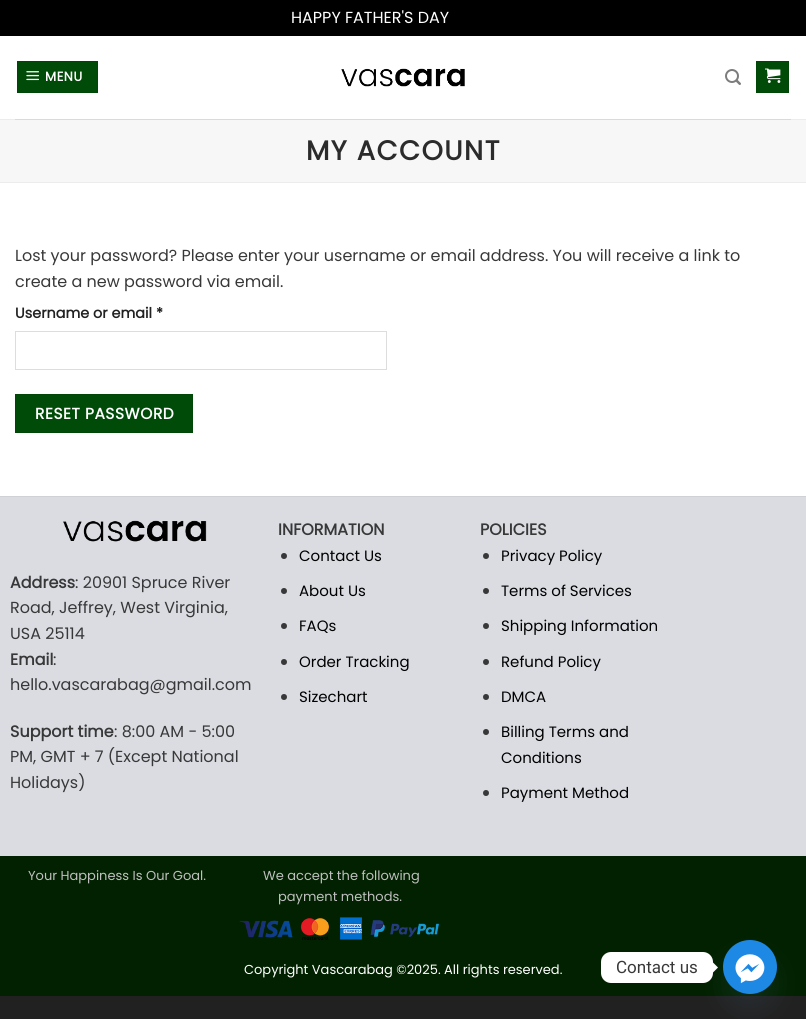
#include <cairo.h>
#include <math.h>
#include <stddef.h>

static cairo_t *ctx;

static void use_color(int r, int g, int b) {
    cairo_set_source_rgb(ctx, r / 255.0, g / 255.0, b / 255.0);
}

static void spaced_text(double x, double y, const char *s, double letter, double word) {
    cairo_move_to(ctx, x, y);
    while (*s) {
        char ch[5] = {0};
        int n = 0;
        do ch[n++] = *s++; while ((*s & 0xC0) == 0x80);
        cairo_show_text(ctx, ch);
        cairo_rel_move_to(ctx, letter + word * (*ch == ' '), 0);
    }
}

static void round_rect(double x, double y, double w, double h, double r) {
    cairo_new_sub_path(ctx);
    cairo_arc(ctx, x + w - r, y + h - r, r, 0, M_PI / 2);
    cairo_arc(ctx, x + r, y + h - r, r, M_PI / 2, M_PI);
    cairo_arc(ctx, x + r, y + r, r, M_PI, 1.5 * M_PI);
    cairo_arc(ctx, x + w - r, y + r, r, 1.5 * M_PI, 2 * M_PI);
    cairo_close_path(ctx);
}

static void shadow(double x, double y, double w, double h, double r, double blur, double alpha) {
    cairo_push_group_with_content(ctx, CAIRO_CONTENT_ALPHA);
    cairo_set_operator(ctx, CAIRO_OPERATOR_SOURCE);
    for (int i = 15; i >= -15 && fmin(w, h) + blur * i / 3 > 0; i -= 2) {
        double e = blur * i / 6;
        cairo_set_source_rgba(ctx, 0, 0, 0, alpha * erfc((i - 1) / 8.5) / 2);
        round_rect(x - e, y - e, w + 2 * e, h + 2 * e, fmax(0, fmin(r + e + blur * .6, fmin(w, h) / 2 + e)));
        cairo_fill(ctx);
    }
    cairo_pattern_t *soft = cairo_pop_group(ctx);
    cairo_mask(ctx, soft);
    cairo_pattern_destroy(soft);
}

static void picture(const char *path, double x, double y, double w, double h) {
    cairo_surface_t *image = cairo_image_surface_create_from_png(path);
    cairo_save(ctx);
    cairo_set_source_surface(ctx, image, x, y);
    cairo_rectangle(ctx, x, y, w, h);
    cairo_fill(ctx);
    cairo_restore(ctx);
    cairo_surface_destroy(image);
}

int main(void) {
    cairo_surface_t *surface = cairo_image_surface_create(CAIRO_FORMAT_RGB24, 806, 1019);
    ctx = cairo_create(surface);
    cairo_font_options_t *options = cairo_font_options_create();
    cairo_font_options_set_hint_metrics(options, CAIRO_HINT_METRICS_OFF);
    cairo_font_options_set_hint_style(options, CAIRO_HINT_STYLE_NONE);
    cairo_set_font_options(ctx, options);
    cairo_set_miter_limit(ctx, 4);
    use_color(33, 33, 33);
    cairo_paint(ctx);
    use_color(0, 0, 0);
    cairo_rectangle(ctx, 0, 0, 806, 36);
    cairo_fill(ctx);
    cairo_select_font_face(ctx, "Poppins", CAIRO_FONT_SLANT_NORMAL, CAIRO_FONT_WEIGHT_NORMAL);
    cairo_set_font_size(ctx, 16);
    use_color(255, 255, 255);
    cairo_move_to(ctx, 291, 23);
    cairo_show_text(ctx, "HAPPY FATHER'S DAY");
    cairo_rectangle(ctx, 0, 36, 806, 460);
    cairo_fill(ctx);
    use_color(0, 75, 7);
    cairo_rectangle(ctx, 17.5, 61.5, 80, 31);
    cairo_fill_preserve(ctx);
    use_color(0, 71, 7);
    cairo_set_line_width(ctx, 1);
    cairo_stroke(ctx);
    picture("img1.png", 26, 71, 13, 10);
    cairo_select_font_face(ctx, "Poppins", CAIRO_FONT_SLANT_NORMAL, CAIRO_FONT_WEIGHT_BOLD);
    cairo_set_font_size(ctx, 13);
    use_color(255, 255, 255);
    spaced_text(45, 81, "MENU", 0.5, 0);
    picture("img2.png", 341, 68, 124, 19);
    picture("img3.png", 725, 69, 16, 16);
    use_color(0, 75, 7);
    cairo_rectangle(ctx, 756.5, 61.5, 32, 31);
    cairo_fill_preserve(ctx);
    use_color(0, 71, 7);
    cairo_stroke(ctx);
    picture("img4.png", 765, 68, 16, 15);
    use_color(236, 236, 236);
    cairo_rectangle(ctx, 0, 119, 806, 1);
    cairo_fill(ctx);
    use_color(218, 218, 218);
    cairo_rectangle(ctx, 15, 119, 776, 1);
    cairo_fill(ctx);
    use_color(247, 247, 247);
    cairo_rectangle(ctx, 0, 120, 806, 62);
    cairo_fill(ctx);
    use_color(236, 236, 236);
    cairo_rectangle(ctx, 0, 182, 806, 1);
    cairo_fill(ctx);
    cairo_set_font_size(ctx, 27.25);
    use_color(43, 43, 43);
    spaced_text(306, 160, "MY ACCOUNT", 1.4, 0);
    cairo_select_font_face(ctx, "Poppins", CAIRO_FONT_SLANT_NORMAL, CAIRO_FONT_WEIGHT_NORMAL);
    cairo_set_font_size(ctx, 16);
    use_color(56, 56, 56);
    cairo_move_to(ctx, 15, 261);
    cairo_show_text(ctx, "Lost your password? Please enter your username or email address. You will receive a link to");
    cairo_move_to(ctx, 15, 287);
    cairo_show_text(ctx, "create a new password via email.");
    cairo_select_font_face(ctx, "Poppins", CAIRO_FONT_SLANT_NORMAL, CAIRO_FONT_WEIGHT_BOLD);
    cairo_set_font_size(ctx, 14.4);
    use_color(34, 34, 34);
    cairo_move_to(ctx, 15, 318);
    cairo_show_text(ctx, "Username or email *");
    cairo_rectangle(ctx, 15.5, 331.5, 371, 38);
    use_color(221, 221, 221);
    cairo_stroke(ctx);
    use_color(0, 75, 7);
    cairo_rectangle(ctx, 15.5, 394.5, 177, 38);
    cairo_fill_preserve(ctx);
    use_color(0, 71, 7);
    cairo_stroke(ctx);
    cairo_set_font_size(ctx, 15.5);
    use_color(255, 255, 255);
    spaced_text(35, 419, "RESET PASSWORD", 0.5, 0);
    use_color(218, 220, 225);
    cairo_rectangle(ctx, 0, 497, 806, 359);
    cairo_fill(ctx);
    use_color(207, 209, 214);
    cairo_rectangle(ctx, 0, 496, 806, 1);
    cairo_fill(ctx);
    picture("img5.png", 63, 520, 144, 22);
    cairo_set_font_size(ctx, 16);
    use_color(56, 56, 56);
    cairo_move_to(ctx, 10, 588);
    cairo_show_text(ctx, "Address");
    cairo_select_font_face(ctx, "Poppins", CAIRO_FONT_SLANT_NORMAL, CAIRO_FONT_WEIGHT_NORMAL);
    cairo_move_to(ctx, 75, 588);
    cairo_show_text(ctx, ": 20901 Spruce River");
    cairo_move_to(ctx, 10, 613);
    cairo_show_text(ctx, "Road, Jeffrey, West Virginia,");
    cairo_move_to(ctx, 10, 639);
    cairo_show_text(ctx, "USA 25114");
    cairo_select_font_face(ctx, "Poppins", CAIRO_FONT_SLANT_NORMAL, CAIRO_FONT_WEIGHT_BOLD);
    cairo_move_to(ctx, 10, 665);
    cairo_show_text(ctx, "Email");
    cairo_select_font_face(ctx, "Poppins", CAIRO_FONT_SLANT_NORMAL, CAIRO_FONT_WEIGHT_NORMAL);
    cairo_move_to(ctx, 53, 665);
    cairo_show_text(ctx, ":");
    cairo_move_to(ctx, 10, 690);
    cairo_show_text(ctx, "hello.vascarabag@gmail.com");
    cairo_select_font_face(ctx, "Poppins", CAIRO_FONT_SLANT_NORMAL, CAIRO_FONT_WEIGHT_BOLD);
    cairo_move_to(ctx, 10, 737);
    cairo_show_text(ctx, "Support time");
    cairo_select_font_face(ctx, "Poppins", CAIRO_FONT_SLANT_NORMAL, CAIRO_FONT_WEIGHT_NORMAL);
    cairo_move_to(ctx, 114, 737);
    cairo_show_text(ctx, ": 8:00 AM - 5:00");
    cairo_move_to(ctx, 10, 762);
    cairo_show_text(ctx, "PM, GMT + 7 (Except National");
    cairo_move_to(ctx, 10, 788);
    cairo_show_text(ctx, "Holidays)");
    cairo_select_font_face(ctx, "Poppins", CAIRO_FONT_SLANT_NORMAL, CAIRO_FONT_WEIGHT_BOLD);
    cairo_move_to(ctx, 278, 535);
    cairo_show_text(ctx, "INFORMATION");
    cairo_new_path(ctx);
    cairo_arc(ctx, 284, 556, 3, 0, 2 * M_PI);
    cairo_fill(ctx);
    cairo_select_font_face(ctx, "Poppins", CAIRO_FONT_SLANT_NORMAL, CAIRO_FONT_WEIGHT_NORMAL);
    cairo_set_font_size(ctx, 15);
    use_color(0, 0, 0);
    cairo_move_to(ctx, 299, 561);
    cairo_show_text(ctx, "Contact Us");
    use_color(56, 56, 56);
    cairo_new_path(ctx);
    cairo_arc(ctx, 284, 591, 3, 0, 2 * M_PI);
    cairo_fill(ctx);
    use_color(0, 0, 0);
    cairo_move_to(ctx, 299, 596);
    cairo_show_text(ctx, "About Us");
    use_color(56, 56, 56);
    cairo_new_path(ctx);
    cairo_arc(ctx, 284, 626, 3, 0, 2 * M_PI);
    cairo_fill(ctx);
    use_color(0, 0, 0);
    cairo_move_to(ctx, 299, 631);
    cairo_show_text(ctx, "FAQs");
    use_color(56, 56, 56);
    cairo_new_path(ctx);
    cairo_arc(ctx, 284, 662, 3, 0, 2 * M_PI);
    cairo_fill(ctx);
    use_color(0, 0, 0);
    cairo_move_to(ctx, 299, 667);
    cairo_show_text(ctx, "Order Tracking");
    use_color(56, 56, 56);
    cairo_new_path(ctx);
    cairo_arc(ctx, 284, 697, 3, 0, 2 * M_PI);
    cairo_fill(ctx);
    use_color(0, 0, 0);
    cairo_move_to(ctx, 299, 702);
    cairo_show_text(ctx, "Sizechart");
    cairo_select_font_face(ctx, "Poppins", CAIRO_FONT_SLANT_NORMAL, CAIRO_FONT_WEIGHT_BOLD);
    cairo_set_font_size(ctx, 16);
    use_color(56, 56, 56);
    cairo_move_to(ctx, 480, 535);
    cairo_show_text(ctx, "POLICIES");
    cairo_new_path(ctx);
    cairo_arc(ctx, 486, 556, 3, 0, 2 * M_PI);
    cairo_fill(ctx);
    cairo_select_font_face(ctx, "Poppins", CAIRO_FONT_SLANT_NORMAL, CAIRO_FONT_WEIGHT_NORMAL);
    cairo_set_font_size(ctx, 15);
    use_color(0, 0, 0);
    cairo_move_to(ctx, 501, 561);
    cairo_show_text(ctx, "Privacy Policy");
    use_color(56, 56, 56);
    cairo_new_path(ctx);
    cairo_arc(ctx, 486, 591, 3, 0, 2 * M_PI);
    cairo_fill(ctx);
    use_color(0, 0, 0);
    cairo_move_to(ctx, 501, 596);
    cairo_show_text(ctx, "Terms of Services");
    use_color(56, 56, 56);
    cairo_new_path(ctx);
    cairo_arc(ctx, 486, 626, 3, 0, 2 * M_PI);
    cairo_fill(ctx);
    use_color(0, 0, 0);
    cairo_move_to(ctx, 501, 631);
    cairo_show_text(ctx, "Shipping Information");
    use_color(56, 56, 56);
    cairo_new_path(ctx);
    cairo_arc(ctx, 486, 662, 3, 0, 2 * M_PI);
    cairo_fill(ctx);
    use_color(0, 0, 0);
    cairo_move_to(ctx, 501, 667);
    cairo_show_text(ctx, "Refund Policy");
    use_color(56, 56, 56);
    cairo_new_path(ctx);
    cairo_arc(ctx, 486, 697, 3, 0, 2 * M_PI);
    cairo_fill(ctx);
    use_color(0, 0, 0);
    cairo_move_to(ctx, 501, 702);
    cairo_show_text(ctx, "DMCA");
    use_color(56, 56, 56);
    cairo_new_path(ctx);
    cairo_arc(ctx, 486, 732, 3, 0, 2 * M_PI);
    cairo_fill(ctx);
    use_color(0, 0, 0);
    cairo_move_to(ctx, 501, 737);
    cairo_show_text(ctx, "Billing Terms and");
    cairo_move_to(ctx, 501, 763);
    cairo_show_text(ctx, "Conditions");
    use_color(56, 56, 56);
    cairo_new_path(ctx);
    cairo_arc(ctx, 486, 793, 3, 0, 2 * M_PI);
    cairo_fill(ctx);
    use_color(0, 0, 0);
    cairo_move_to(ctx, 501, 798);
    cairo_show_text(ctx, "Payment Method");
    use_color(1, 33, 0);
    cairo_rectangle(ctx, 0, 856, 806, 140);
    cairo_fill(ctx);
    cairo_set_font_size(ctx, 13);
    use_color(192, 192, 192);
    cairo_move_to(ctx, 28, 880);
    cairo_show_text(ctx, "Your Happiness Is Our Goal.");
    cairo_move_to(ctx, 263, 880);
    cairo_show_text(ctx, "We accept the following");
    cairo_move_to(ctx, 278, 901);
    cairo_show_text(ctx, "payment methods.");
    picture("img6.png", 239, 917, 200, 23);
    use_color(255, 255, 255);
    cairo_move_to(ctx, 244, 974);
    cairo_show_text(ctx, "Copyright Vascarabag ©2025. All rights reserved.");
    use_color(73, 104, 126);
    shadow(723, 956, 54, 54, 27, 12, 0.16);
    use_color(255, 255, 255);
    round_rect(601, 952, 112, 31, 10);
    cairo_fill(ctx);
    cairo_select_font_face(ctx, "Roboto", CAIRO_FONT_SLANT_NORMAL, CAIRO_FONT_WEIGHT_NORMAL);
    cairo_set_font_size(ctx, 17);
    use_color(56, 56, 56);
    cairo_move_to(ctx, 616, 973);
    cairo_show_text(ctx, "Contact us");
    use_color(255, 255, 255);
    cairo_new_path(ctx);
    cairo_move_to(ctx, 713, 972.5);
    cairo_line_to(ctx, 713, 962.5);
    cairo_line_to(ctx, 718, 967.5);
    cairo_close_path(ctx);
    cairo_fill(ctx);
    picture("img7.png", 723, 940, 54, 54);
    cairo_surface_write_to_png(surface, "result.png");
    cairo_font_options_destroy(options);
    cairo_destroy(ctx);
    cairo_surface_destroy(surface);
    return 0;
}
